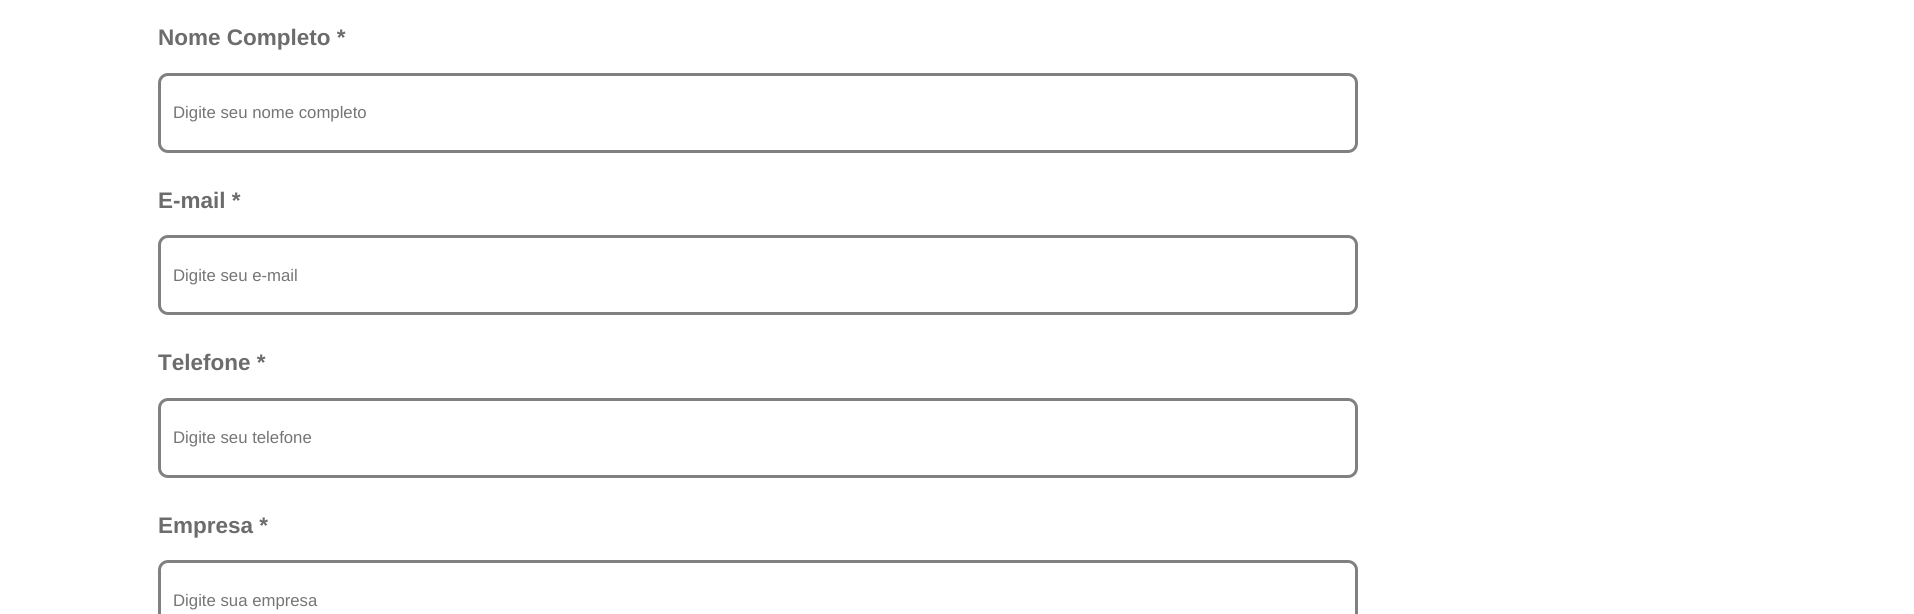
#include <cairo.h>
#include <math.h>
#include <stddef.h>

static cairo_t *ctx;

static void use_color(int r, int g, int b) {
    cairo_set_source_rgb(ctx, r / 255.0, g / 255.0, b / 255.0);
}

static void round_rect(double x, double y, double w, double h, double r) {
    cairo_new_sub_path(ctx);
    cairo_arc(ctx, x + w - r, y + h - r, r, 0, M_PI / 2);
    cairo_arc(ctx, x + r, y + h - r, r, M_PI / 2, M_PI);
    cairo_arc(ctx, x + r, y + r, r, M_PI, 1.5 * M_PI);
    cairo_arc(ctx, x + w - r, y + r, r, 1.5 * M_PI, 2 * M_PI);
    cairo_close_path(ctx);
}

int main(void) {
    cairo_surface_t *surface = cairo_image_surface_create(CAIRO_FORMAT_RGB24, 1914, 614);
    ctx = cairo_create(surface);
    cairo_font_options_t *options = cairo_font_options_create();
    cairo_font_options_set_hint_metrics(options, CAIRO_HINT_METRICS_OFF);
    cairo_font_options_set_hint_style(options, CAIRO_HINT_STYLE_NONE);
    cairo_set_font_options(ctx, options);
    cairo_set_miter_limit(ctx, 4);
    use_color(255, 255, 255);
    cairo_paint(ctx);
    cairo_select_font_face(ctx, "Liberation Sans", CAIRO_FONT_SLANT_NORMAL, CAIRO_FONT_WEIGHT_BOLD);
    cairo_set_font_size(ctx, 22.5);
    use_color(108, 108, 108);
    cairo_move_to(ctx, 158, 45);
    cairo_show_text(ctx, "Nome Completo *");
    round_rect(159.5, 74.5, 1197, 77, 8.5);
    use_color(128, 128, 128);
    cairo_set_line_width(ctx, 3);
    cairo_stroke(ctx);
    cairo_select_font_face(ctx, "Liberation Sans", CAIRO_FONT_SLANT_NORMAL, CAIRO_FONT_WEIGHT_NORMAL);
    cairo_set_font_size(ctx, 16.75);
    use_color(117, 117, 117);
    cairo_move_to(ctx, 173, 118);
    cairo_show_text(ctx, "Digite seu nome completo");
    cairo_select_font_face(ctx, "Liberation Sans", CAIRO_FONT_SLANT_NORMAL, CAIRO_FONT_WEIGHT_BOLD);
    cairo_set_font_size(ctx, 22.5);
    use_color(108, 108, 108);
    cairo_move_to(ctx, 158, 208);
    cairo_show_text(ctx, "E-mail *");
    round_rect(159.5, 236.5, 1197, 77, 8.5);
    use_color(128, 128, 128);
    cairo_stroke(ctx);
    cairo_select_font_face(ctx, "Liberation Sans", CAIRO_FONT_SLANT_NORMAL, CAIRO_FONT_WEIGHT_NORMAL);
    cairo_set_font_size(ctx, 16.75);
    use_color(117, 117, 117);
    cairo_move_to(ctx, 173, 281);
    cairo_show_text(ctx, "Digite seu e-mail");
    cairo_select_font_face(ctx, "Liberation Sans", CAIRO_FONT_SLANT_NORMAL, CAIRO_FONT_WEIGHT_BOLD);
    cairo_set_font_size(ctx, 22.5);
    use_color(108, 108, 108);
    cairo_move_to(ctx, 158, 370);
    cairo_show_text(ctx, "Telefone *");
    round_rect(159.5, 399.5, 1197, 77, 8.5);
    use_color(128, 128, 128);
    cairo_stroke(ctx);
    cairo_select_font_face(ctx, "Liberation Sans", CAIRO_FONT_SLANT_NORMAL, CAIRO_FONT_WEIGHT_NORMAL);
    cairo_set_font_size(ctx, 16.75);
    use_color(117, 117, 117);
    cairo_move_to(ctx, 173, 443);
    cairo_show_text(ctx, "Digite seu telefone");
    cairo_select_font_face(ctx, "Liberation Sans", CAIRO_FONT_SLANT_NORMAL, CAIRO_FONT_WEIGHT_BOLD);
    cairo_set_font_size(ctx, 22.5);
    use_color(108, 108, 108);
    cairo_move_to(ctx, 158, 533);
    cairo_show_text(ctx, "Empresa *");
    round_rect(159.5, 561.5, 1197, 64, 8.5);
    use_color(128, 128, 128);
    cairo_stroke(ctx);
    cairo_select_font_face(ctx, "Liberation Sans", CAIRO_FONT_SLANT_NORMAL, CAIRO_FONT_WEIGHT_NORMAL);
    cairo_set_font_size(ctx, 16.75);
    use_color(117, 117, 117);
    cairo_move_to(ctx, 173, 606);
    cairo_show_text(ctx, "Digite sua empresa");
    cairo_surface_write_to_png(surface, "result.png");
    cairo_font_options_destroy(options);
    cairo_destroy(ctx);
    cairo_surface_destroy(surface);
    return 0;
}
